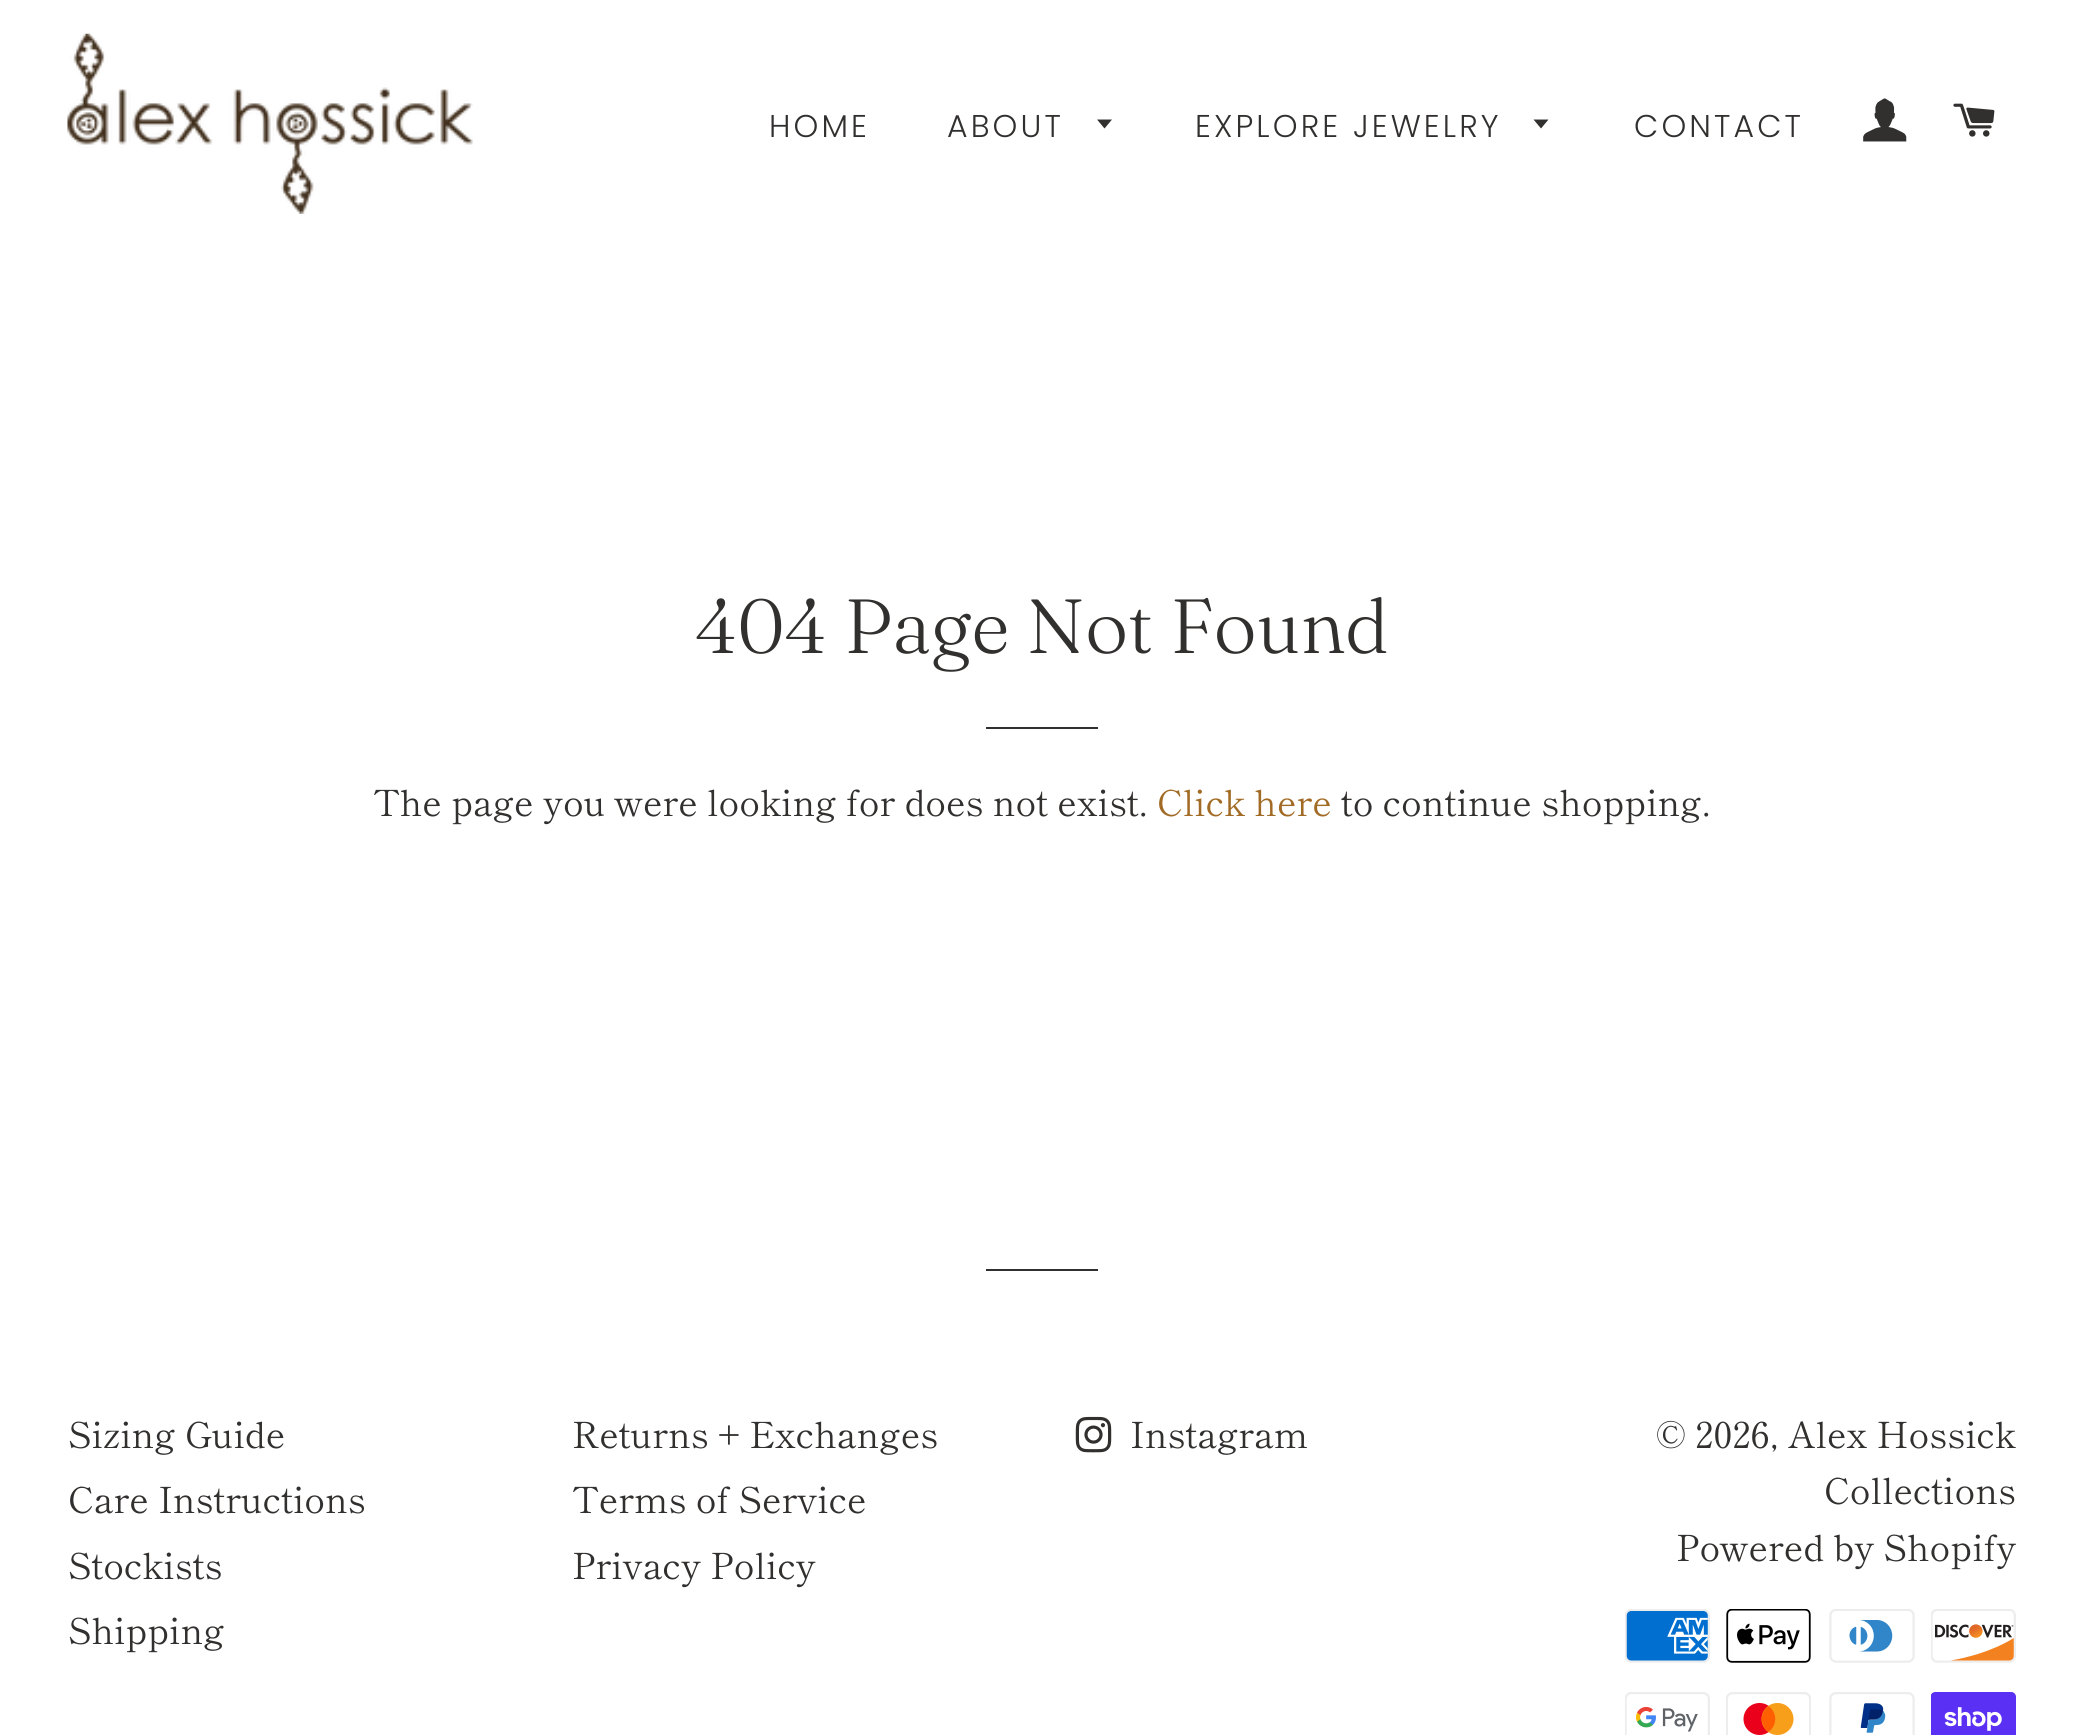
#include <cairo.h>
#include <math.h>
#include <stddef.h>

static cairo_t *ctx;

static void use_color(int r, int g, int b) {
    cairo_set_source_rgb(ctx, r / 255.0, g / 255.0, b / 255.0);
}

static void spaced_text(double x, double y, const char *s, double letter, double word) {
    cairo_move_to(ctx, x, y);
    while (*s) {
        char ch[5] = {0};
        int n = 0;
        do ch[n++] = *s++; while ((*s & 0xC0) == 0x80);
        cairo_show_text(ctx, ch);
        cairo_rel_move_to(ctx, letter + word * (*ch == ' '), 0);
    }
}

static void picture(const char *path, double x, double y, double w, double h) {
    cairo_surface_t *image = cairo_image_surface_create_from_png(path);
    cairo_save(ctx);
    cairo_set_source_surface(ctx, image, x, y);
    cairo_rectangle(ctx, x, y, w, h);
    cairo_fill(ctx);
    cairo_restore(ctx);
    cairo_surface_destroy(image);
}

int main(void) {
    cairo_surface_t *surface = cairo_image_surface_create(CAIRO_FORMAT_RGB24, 2083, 1735);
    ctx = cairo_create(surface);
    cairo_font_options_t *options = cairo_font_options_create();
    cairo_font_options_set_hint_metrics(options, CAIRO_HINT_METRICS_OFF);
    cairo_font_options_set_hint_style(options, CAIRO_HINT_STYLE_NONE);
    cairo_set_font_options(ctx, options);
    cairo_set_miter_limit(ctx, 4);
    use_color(255, 255, 255);
    cairo_paint(ctx);
    picture("img1.png", 67, 33, 406, 181);
    cairo_select_font_face(ctx, "Poppins Light", CAIRO_FONT_SLANT_NORMAL, CAIRO_FONT_WEIGHT_NORMAL);
    cairo_set_font_size(ctx, 31.5);
    use_color(50, 48, 47);
    spaced_text(769, 137, "HOME", 3.1, 0);
    spaced_text(947, 137, "ABOUT", 3.1, 0);
    cairo_new_path(ctx);
    cairo_move_to(ctx, 1097, 119.5);
    cairo_line_to(ctx, 1104.5, 128.5);
    cairo_line_to(ctx, 1112, 119.5);
    cairo_close_path(ctx);
    cairo_fill(ctx);
    spaced_text(1195, 137, "EXPLORE JEWELRY", 3.1, 0);
    cairo_new_path(ctx);
    cairo_move_to(ctx, 1533.5, 119.5);
    cairo_line_to(ctx, 1541, 128.5);
    cairo_line_to(ctx, 1548.5, 119.5);
    cairo_close_path(ctx);
    cairo_fill(ctx);
    spaced_text(1634, 137, "CONTACT", 3.1, 0);
    picture("img2.png", 1863, 98, 44, 44);
    picture("img3.png", 1953, 103, 42, 34);
    cairo_select_font_face(ctx, "Fraunces Light", CAIRO_FONT_SLANT_NORMAL, CAIRO_FONT_WEIGHT_NORMAL);
    cairo_set_font_size(ctx, 76.5);
    cairo_move_to(ctx, 695, 653);
    cairo_show_text(ctx, "404 Page Not Found");
    cairo_rectangle(ctx, 986, 727, 112, 2);
    cairo_fill(ctx);
    cairo_select_font_face(ctx, "Shippori Mincho", CAIRO_FONT_SLANT_NORMAL, CAIRO_FONT_WEIGHT_NORMAL);
    cairo_set_font_size(ctx, 36);
    cairo_move_to(ctx, 373, 816);
    cairo_show_text(ctx, "The page you were looking for does not exist.");
    use_color(162, 107, 37);
    cairo_move_to(ctx, 1157, 816);
    cairo_show_text(ctx, "Click here");
    use_color(50, 48, 47);
    cairo_move_to(ctx, 1341, 816);
    cairo_show_text(ctx, "to continue shopping.");
    cairo_rectangle(ctx, 986, 1269, 112, 2);
    cairo_fill(ctx);
    cairo_move_to(ctx, 68, 1448);
    cairo_show_text(ctx, "Sizing Guide");
    cairo_move_to(ctx, 68, 1513);
    cairo_show_text(ctx, "Care Instructions");
    cairo_move_to(ctx, 68, 1579);
    cairo_show_text(ctx, "Stockists");
    cairo_move_to(ctx, 68, 1644);
    cairo_show_text(ctx, "Shipping");
    cairo_move_to(ctx, 572, 1448);
    cairo_show_text(ctx, "Returns + Exchanges");
    cairo_move_to(ctx, 572, 1513);
    cairo_show_text(ctx, "Terms of Service");
    cairo_move_to(ctx, 572, 1579);
    cairo_show_text(ctx, "Privacy Policy");
    picture("img4.png", 1075, 1416, 37, 37);
    cairo_move_to(ctx, 1130, 1448);
    cairo_show_text(ctx, "Instagram");
    cairo_move_to(ctx, 1656, 1448);
    cairo_show_text(ctx, "© 2026, Alex Hossick");
    cairo_move_to(ctx, 1824, 1504);
    cairo_show_text(ctx, "Collections");
    cairo_move_to(ctx, 1676, 1561);
    cairo_show_text(ctx, "Powered by Shopify");
    picture("img5.png", 1625, 1609, 85, 54);
    picture("img6.png", 1726, 1609, 85, 54);
    picture("img7.png", 1829, 1609, 86, 54);
    picture("img8.png", 1931, 1609, 85, 54);
    picture("img9.png", 1625, 1692, 85, 43);
    picture("img10.png", 1726, 1692, 85, 43);
    picture("img11.png", 1829, 1692, 86, 43);
    picture("img12.png", 1931, 1692, 85, 43);
    cairo_surface_write_to_png(surface, "result.png");
    cairo_font_options_destroy(options);
    cairo_destroy(ctx);
    cairo_surface_destroy(surface);
    return 0;
}
